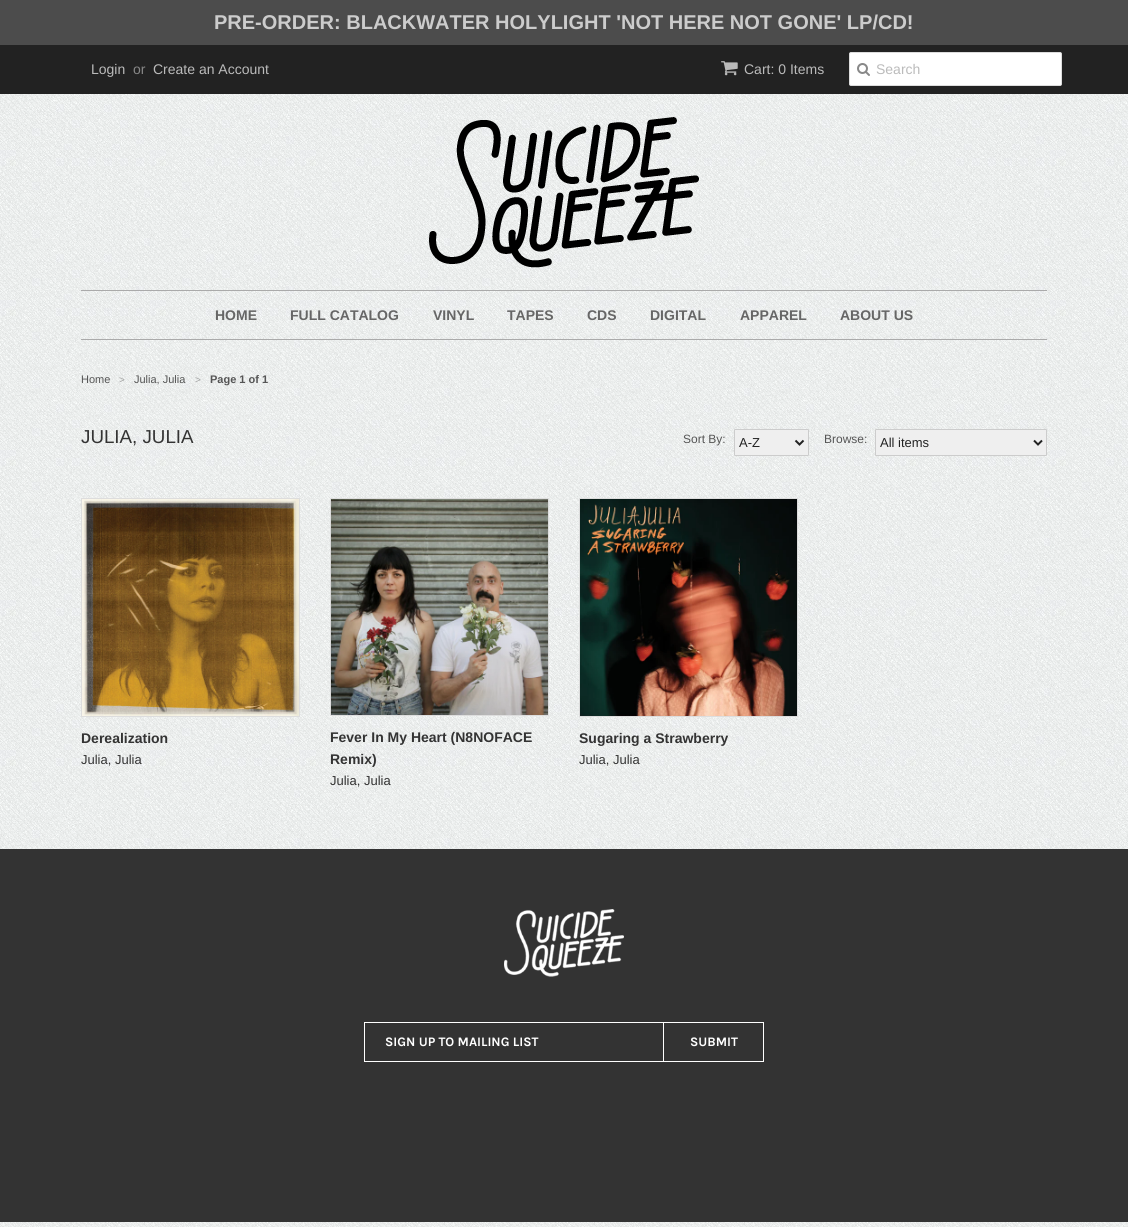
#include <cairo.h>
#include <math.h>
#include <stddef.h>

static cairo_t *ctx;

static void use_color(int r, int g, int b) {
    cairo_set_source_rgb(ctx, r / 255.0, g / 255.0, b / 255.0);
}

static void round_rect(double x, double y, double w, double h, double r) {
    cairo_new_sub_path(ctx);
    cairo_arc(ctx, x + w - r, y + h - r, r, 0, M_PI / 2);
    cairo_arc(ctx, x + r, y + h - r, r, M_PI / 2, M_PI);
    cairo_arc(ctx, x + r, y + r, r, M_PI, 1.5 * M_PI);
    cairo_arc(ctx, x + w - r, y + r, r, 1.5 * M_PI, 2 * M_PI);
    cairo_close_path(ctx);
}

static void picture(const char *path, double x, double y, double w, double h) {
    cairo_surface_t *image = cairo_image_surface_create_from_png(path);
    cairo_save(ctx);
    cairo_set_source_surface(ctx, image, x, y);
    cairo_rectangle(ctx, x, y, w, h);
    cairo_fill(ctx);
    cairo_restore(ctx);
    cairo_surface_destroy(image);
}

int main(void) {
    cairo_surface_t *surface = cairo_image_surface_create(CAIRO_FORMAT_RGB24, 1128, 1227);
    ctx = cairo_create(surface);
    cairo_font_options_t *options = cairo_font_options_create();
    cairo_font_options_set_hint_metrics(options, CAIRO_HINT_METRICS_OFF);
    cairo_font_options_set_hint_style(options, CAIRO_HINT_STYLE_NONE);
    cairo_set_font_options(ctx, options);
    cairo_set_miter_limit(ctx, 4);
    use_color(255, 255, 255);
    cairo_paint(ctx);
    picture("img1.png", 0, 1222, 1128, 5);
    picture("img2.png", 0, 94, 1128, 755);
    use_color(76, 76, 76);
    cairo_rectangle(ctx, 0, 0, 1128, 45);
    cairo_fill(ctx);
    cairo_select_font_face(ctx, "Liberation Sans", CAIRO_FONT_SLANT_NORMAL, CAIRO_FONT_WEIGHT_BOLD);
    cairo_set_font_size(ctx, 20);
    use_color(204, 204, 204);
    cairo_move_to(ctx, 214, 29);
    cairo_show_text(ctx, "PRE-ORDER: BLACKWATER HOLYLIGHT 'NOT HERE NOT GONE' LP/CD!");
    use_color(34, 34, 34);
    cairo_rectangle(ctx, 0, 45, 1128, 49);
    cairo_fill(ctx);
    cairo_select_font_face(ctx, "Liberation Sans", CAIRO_FONT_SLANT_NORMAL, CAIRO_FONT_WEIGHT_NORMAL);
    cairo_set_font_size(ctx, 14);
    use_color(187, 187, 187);
    cairo_move_to(ctx, 91, 74);
    cairo_show_text(ctx, "Login");
    use_color(136, 136, 136);
    cairo_move_to(ctx, 133, 74);
    cairo_show_text(ctx, "or");
    use_color(187, 187, 187);
    cairo_move_to(ctx, 153, 74);
    cairo_show_text(ctx, "Create an Account");
    picture("img3.png", 721, 61, 17, 15);
    cairo_move_to(ctx, 744, 74);
    cairo_show_text(ctx, "Cart: 0 Items");
    use_color(255, 255, 255);
    round_rect(849.5, 52.5, 212, 33, 1.5);
    cairo_fill_preserve(ctx);
    use_color(221, 221, 221);
    cairo_set_line_width(ctx, 1);
    cairo_stroke(ctx);
    picture("img4.png", 857, 63, 13, 13);
    use_color(187, 187, 187);
    cairo_move_to(ctx, 876, 74);
    cairo_show_text(ctx, "Search");
    picture("img5.png", 429, 117, 270, 151);
    use_color(170, 170, 170);
    cairo_rectangle(ctx, 81, 290, 966, 1);
    cairo_fill(ctx);
    cairo_rectangle(ctx, 81, 339, 966, 1);
    cairo_fill(ctx);
    cairo_select_font_face(ctx, "Liberation Sans", CAIRO_FONT_SLANT_NORMAL, CAIRO_FONT_WEIGHT_BOLD);
    use_color(102, 102, 102);
    cairo_move_to(ctx, 215, 320);
    cairo_show_text(ctx, "HOME");
    cairo_move_to(ctx, 290, 320);
    cairo_show_text(ctx, "FULL CATALOG");
    cairo_move_to(ctx, 433, 320);
    cairo_show_text(ctx, "VINYL");
    cairo_move_to(ctx, 507, 320);
    cairo_show_text(ctx, "TAPES");
    cairo_move_to(ctx, 587, 320);
    cairo_show_text(ctx, "CDS");
    cairo_move_to(ctx, 650, 320);
    cairo_show_text(ctx, "DIGITAL");
    cairo_move_to(ctx, 740, 320);
    cairo_show_text(ctx, "APPAREL");
    cairo_move_to(ctx, 840, 320);
    cairo_show_text(ctx, "ABOUT US");
    cairo_select_font_face(ctx, "Liberation Sans", CAIRO_FONT_SLANT_NORMAL, CAIRO_FONT_WEIGHT_NORMAL);
    cairo_set_font_size(ctx, 11);
    use_color(85, 85, 85);
    cairo_move_to(ctx, 81, 383);
    cairo_show_text(ctx, "Home");
    cairo_set_font_size(ctx, 10);
    use_color(161, 162, 161);
    cairo_move_to(ctx, 119, 383);
    cairo_show_text(ctx, ">");
    cairo_set_font_size(ctx, 11);
    use_color(85, 85, 85);
    cairo_move_to(ctx, 134, 383);
    cairo_show_text(ctx, "Julia, Julia");
    cairo_set_font_size(ctx, 10);
    use_color(161, 162, 161);
    cairo_move_to(ctx, 195, 383);
    cairo_show_text(ctx, ">");
    cairo_select_font_face(ctx, "Liberation Sans", CAIRO_FONT_SLANT_NORMAL, CAIRO_FONT_WEIGHT_BOLD);
    cairo_set_font_size(ctx, 11);
    use_color(85, 85, 85);
    cairo_move_to(ctx, 210, 383);
    cairo_show_text(ctx, "Page 1 of 1");
    cairo_select_font_face(ctx, "Liberation Sans", CAIRO_FONT_SLANT_NORMAL, CAIRO_FONT_WEIGHT_NORMAL);
    cairo_set_font_size(ctx, 18.75);
    use_color(51, 51, 51);
    cairo_move_to(ctx, 81, 443);
    cairo_show_text(ctx, "JULIA, JULIA");
    cairo_set_font_size(ctx, 12);
    use_color(85, 85, 85);
    cairo_move_to(ctx, 683, 443);
    cairo_show_text(ctx, "Sort By:");
    use_color(239, 239, 239);
    round_rect(734.5, 429.5, 74, 26, 0.5);
    cairo_fill_preserve(ctx);
    use_color(204, 204, 204);
    cairo_stroke(ctx);
    cairo_new_path(ctx);
    cairo_move_to(ctx, 795.5, 440.5);
    cairo_line_to(ctx, 799.5, 444.5);
    cairo_line_to(ctx, 803.5, 440.5);
    use_color(34, 34, 34);
    cairo_set_line_width(ctx, 2);
    cairo_stroke(ctx);
    cairo_set_font_size(ctx, 13);
    cairo_move_to(ctx, 739, 447);
    cairo_show_text(ctx, "A-Z");
    cairo_set_font_size(ctx, 12);
    use_color(85, 85, 85);
    cairo_move_to(ctx, 824, 443);
    cairo_show_text(ctx, "Browse:");
    use_color(239, 239, 239);
    round_rect(875.5, 429.5, 171, 26, 0.5);
    cairo_fill_preserve(ctx);
    use_color(204, 204, 204);
    cairo_set_line_width(ctx, 1);
    cairo_stroke(ctx);
    cairo_new_path(ctx);
    cairo_move_to(ctx, 1034, 440.5);
    cairo_line_to(ctx, 1038, 444.5);
    cairo_line_to(ctx, 1042, 440.5);
    use_color(34, 34, 34);
    cairo_set_line_width(ctx, 2);
    cairo_stroke(ctx);
    cairo_set_font_size(ctx, 13);
    cairo_move_to(ctx, 880, 447);
    cairo_show_text(ctx, "All items");
    cairo_rectangle(ctx, 81.5, 498.5, 218, 218);
    use_color(221, 221, 221);
    cairo_set_line_width(ctx, 1);
    cairo_stroke(ctx);
    picture("img6.png", 82, 499, 217, 217);
    cairo_select_font_face(ctx, "Liberation Sans", CAIRO_FONT_SLANT_NORMAL, CAIRO_FONT_WEIGHT_BOLD);
    cairo_set_font_size(ctx, 14);
    use_color(51, 51, 51);
    cairo_move_to(ctx, 81, 743);
    cairo_show_text(ctx, "Derealization");
    cairo_select_font_face(ctx, "Liberation Sans", CAIRO_FONT_SLANT_NORMAL, CAIRO_FONT_WEIGHT_NORMAL);
    cairo_set_font_size(ctx, 13);
    cairo_move_to(ctx, 81, 764);
    cairo_show_text(ctx, "Julia, Julia");
    cairo_rectangle(ctx, 330.5, 498.5, 218, 217);
    use_color(221, 221, 221);
    cairo_stroke(ctx);
    picture("img7.png", 331, 499, 217, 216);
    cairo_select_font_face(ctx, "Liberation Sans", CAIRO_FONT_SLANT_NORMAL, CAIRO_FONT_WEIGHT_BOLD);
    cairo_set_font_size(ctx, 14);
    use_color(51, 51, 51);
    cairo_move_to(ctx, 330, 742);
    cairo_show_text(ctx, "Fever In My Heart (N8NOFACE");
    cairo_move_to(ctx, 330, 764);
    cairo_show_text(ctx, "Remix)");
    cairo_select_font_face(ctx, "Liberation Sans", CAIRO_FONT_SLANT_NORMAL, CAIRO_FONT_WEIGHT_NORMAL);
    cairo_set_font_size(ctx, 13);
    cairo_move_to(ctx, 330, 785);
    cairo_show_text(ctx, "Julia, Julia");
    cairo_rectangle(ctx, 579.5, 498.5, 218, 218);
    use_color(221, 221, 221);
    cairo_stroke(ctx);
    picture("img8.png", 580, 499, 217, 217);
    cairo_select_font_face(ctx, "Liberation Sans", CAIRO_FONT_SLANT_NORMAL, CAIRO_FONT_WEIGHT_BOLD);
    cairo_set_font_size(ctx, 14);
    use_color(51, 51, 51);
    cairo_move_to(ctx, 579, 743);
    cairo_show_text(ctx, "Sugaring a Strawberry");
    cairo_select_font_face(ctx, "Liberation Sans", CAIRO_FONT_SLANT_NORMAL, CAIRO_FONT_WEIGHT_NORMAL);
    cairo_set_font_size(ctx, 13);
    cairo_move_to(ctx, 579, 764);
    cairo_show_text(ctx, "Julia, Julia");
    cairo_rectangle(ctx, 0, 849, 1128, 373);
    cairo_fill(ctx);
    picture("img9.png", 504, 909, 120, 68);
    cairo_rectangle(ctx, 364.5, 1022.5, 299, 39);
    use_color(255, 255, 255);
    cairo_stroke(ctx);
    cairo_select_font_face(ctx, "Karla", CAIRO_FONT_SLANT_NORMAL, CAIRO_FONT_WEIGHT_BOLD);
    cairo_move_to(ctx, 385, 1046);
    cairo_show_text(ctx, "SIGN UP TO MAILING LIST");
    cairo_rectangle(ctx, 664, 1022, 100, 1);
    cairo_fill(ctx);
    cairo_rectangle(ctx, 763, 1022, 1, 40);
    cairo_fill(ctx);
    cairo_rectangle(ctx, 664, 1061, 100, 1);
    cairo_fill(ctx);
    cairo_move_to(ctx, 690, 1046);
    cairo_show_text(ctx, "SUBMIT");
    cairo_surface_write_to_png(surface, "result.png");
    cairo_font_options_destroy(options);
    cairo_destroy(ctx);
    cairo_surface_destroy(surface);
    return 0;
}
